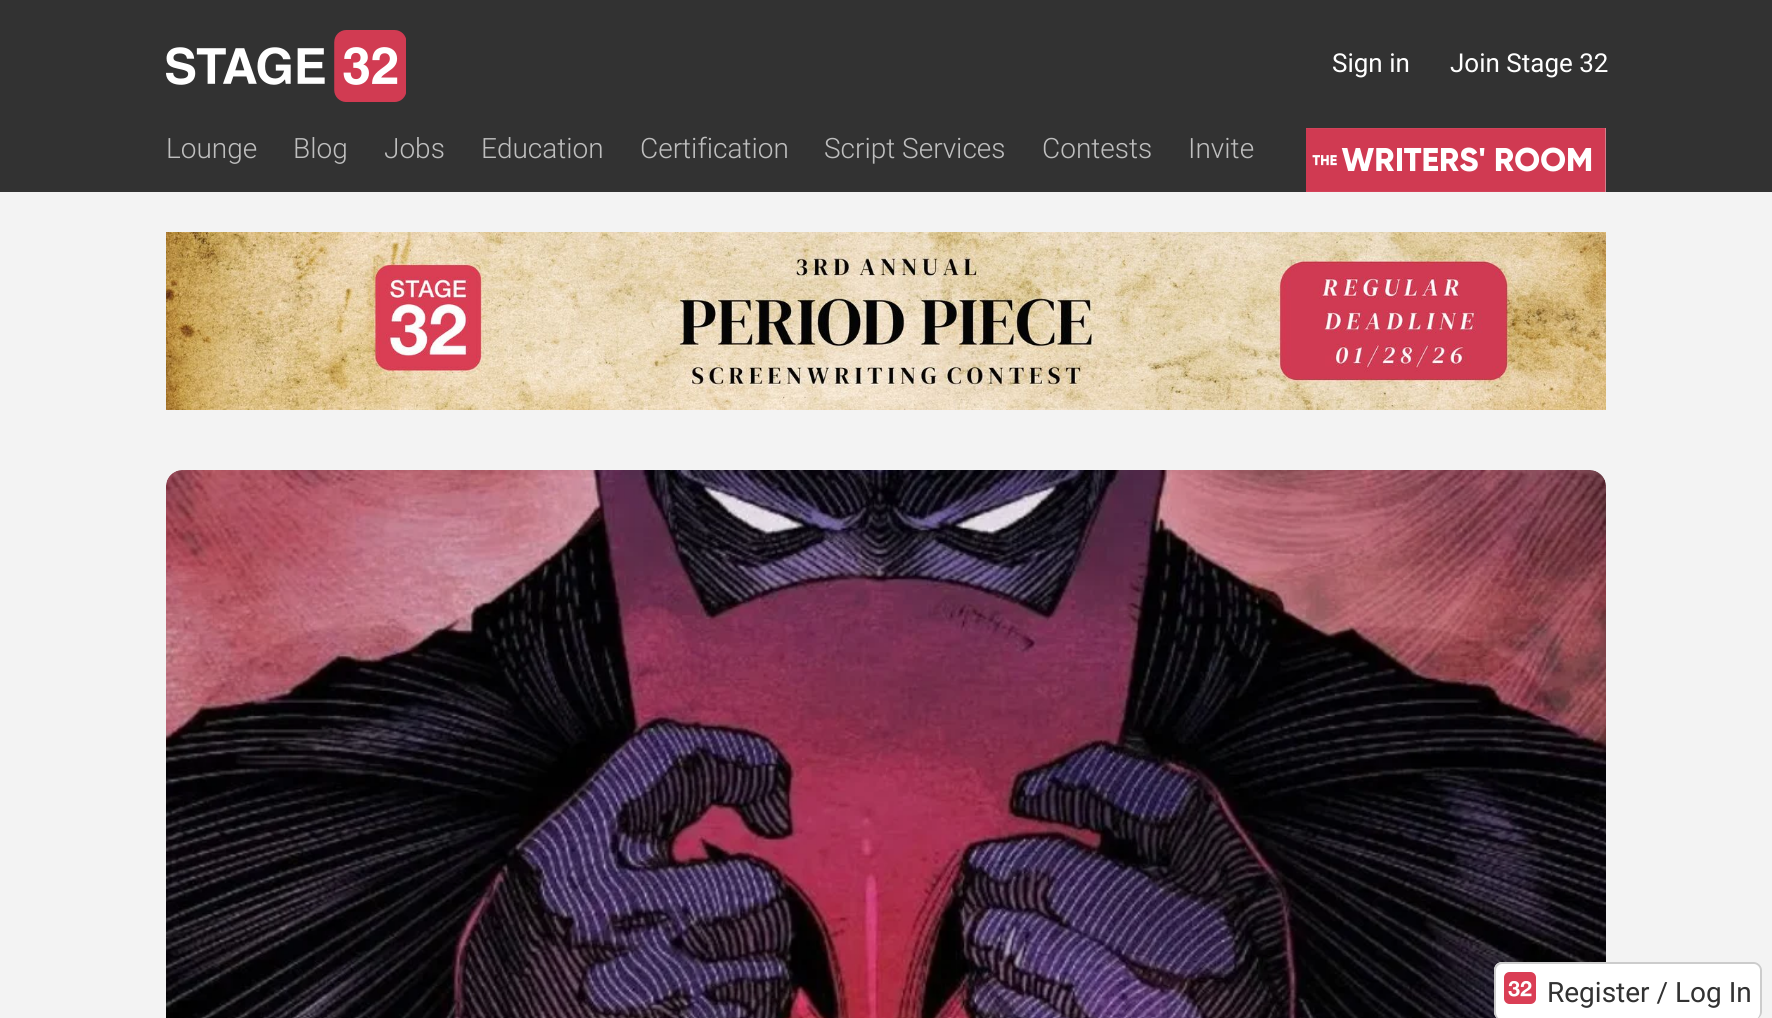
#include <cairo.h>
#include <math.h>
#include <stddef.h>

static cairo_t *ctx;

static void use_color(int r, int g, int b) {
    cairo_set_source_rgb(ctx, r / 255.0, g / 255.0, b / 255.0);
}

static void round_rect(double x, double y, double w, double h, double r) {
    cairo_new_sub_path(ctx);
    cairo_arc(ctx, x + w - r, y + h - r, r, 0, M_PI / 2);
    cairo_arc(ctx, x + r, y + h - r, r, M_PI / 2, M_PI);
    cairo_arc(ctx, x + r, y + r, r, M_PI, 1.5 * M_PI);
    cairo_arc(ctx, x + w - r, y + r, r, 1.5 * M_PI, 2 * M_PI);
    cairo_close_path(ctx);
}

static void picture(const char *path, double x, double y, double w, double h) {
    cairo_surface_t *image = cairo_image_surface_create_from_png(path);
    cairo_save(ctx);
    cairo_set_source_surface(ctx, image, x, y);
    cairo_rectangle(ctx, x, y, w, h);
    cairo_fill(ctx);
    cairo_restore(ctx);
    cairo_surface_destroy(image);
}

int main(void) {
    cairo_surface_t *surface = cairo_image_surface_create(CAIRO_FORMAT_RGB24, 1772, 1018);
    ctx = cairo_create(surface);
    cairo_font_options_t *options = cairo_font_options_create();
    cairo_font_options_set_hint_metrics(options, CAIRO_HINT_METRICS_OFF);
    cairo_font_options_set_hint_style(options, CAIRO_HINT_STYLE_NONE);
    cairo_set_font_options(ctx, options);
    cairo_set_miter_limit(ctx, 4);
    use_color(243, 243, 243);
    cairo_paint(ctx);
    use_color(50, 50, 50);
    cairo_rectangle(ctx, 0, 0, 1772, 192);
    cairo_fill(ctx);
    picture("img1.png", 166, 30, 240, 72);
    cairo_select_font_face(ctx, "Roboto", CAIRO_FONT_SLANT_NORMAL, CAIRO_FONT_WEIGHT_NORMAL);
    cairo_set_font_size(ctx, 26);
    use_color(255, 255, 255);
    cairo_move_to(ctx, 1332, 72);
    cairo_show_text(ctx, "Sign in");
    cairo_move_to(ctx, 1450, 72);
    cairo_show_text(ctx, "Join Stage 32");
    cairo_select_font_face(ctx, "Roboto Light", CAIRO_FONT_SLANT_NORMAL, CAIRO_FONT_WEIGHT_NORMAL);
    cairo_set_font_size(ctx, 28);
    use_color(190, 190, 190);
    cairo_move_to(ctx, 166, 158);
    cairo_show_text(ctx, "Lounge");
    cairo_move_to(ctx, 293, 158);
    cairo_show_text(ctx, "Blog");
    cairo_move_to(ctx, 384, 158);
    cairo_show_text(ctx, "Jobs");
    cairo_move_to(ctx, 481, 158);
    cairo_show_text(ctx, "Education");
    cairo_move_to(ctx, 640, 158);
    cairo_show_text(ctx, "Certification");
    cairo_move_to(ctx, 824, 158);
    cairo_show_text(ctx, "Script Services");
    cairo_move_to(ctx, 1042, 158);
    cairo_show_text(ctx, "Contests");
    cairo_move_to(ctx, 1188, 158);
    cairo_show_text(ctx, "Invite");
    picture("img2.png", 1306, 128, 300, 64);
    picture("img3.png", 166, 232, 1440, 178);
    use_color(240, 240, 240);
    round_rect(166, 470, 1440, 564, 16);
    cairo_fill(ctx);
    picture("img4.png", 166, 470, 1440, 548);
    use_color(255, 255, 255);
    round_rect(1494, 962, 268, 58, 8);
    cairo_fill(ctx);
    use_color(204, 204, 204);
    cairo_set_fill_rule(ctx, CAIRO_FILL_RULE_EVEN_ODD);
    cairo_new_path(ctx);
    cairo_move_to(ctx, 1502, 962);
    cairo_line_to(ctx, 1754, 962);
    cairo_curve_to(ctx, 1758, 962, 1762, 966, 1762, 970);
    cairo_line_to(ctx, 1762, 1012);
    cairo_curve_to(ctx, 1762, 1016, 1758, 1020, 1754, 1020);
    cairo_line_to(ctx, 1502, 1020);
    cairo_curve_to(ctx, 1498, 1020, 1494, 1016, 1494, 1012);
    cairo_line_to(ctx, 1494, 970);
    cairo_curve_to(ctx, 1494, 966, 1498, 962, 1502, 962);
    cairo_close_path(ctx);
    cairo_move_to(ctx, 1502, 964);
    cairo_line_to(ctx, 1754, 964);
    cairo_curve_to(ctx, 1757, 964, 1760, 967, 1760, 970);
    cairo_line_to(ctx, 1760, 1012);
    cairo_curve_to(ctx, 1760, 1016, 1757, 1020, 1754, 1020);
    cairo_line_to(ctx, 1502, 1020);
    cairo_curve_to(ctx, 1499, 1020, 1496, 1016, 1496, 1012);
    cairo_line_to(ctx, 1496, 970);
    cairo_curve_to(ctx, 1496, 967, 1499, 964, 1502, 964);
    cairo_close_path(ctx);
    cairo_fill(ctx);
    picture("img5.png", 1504, 972, 32, 32);
    cairo_select_font_face(ctx, "Roboto", CAIRO_FONT_SLANT_NORMAL, CAIRO_FONT_WEIGHT_NORMAL);
    use_color(50, 50, 50);
    cairo_move_to(ctx, 1547, 1002);
    cairo_show_text(ctx, "Register / Log In");
    cairo_surface_write_to_png(surface, "result.png");
    cairo_font_options_destroy(options);
    cairo_destroy(ctx);
    cairo_surface_destroy(surface);
    return 0;
}
